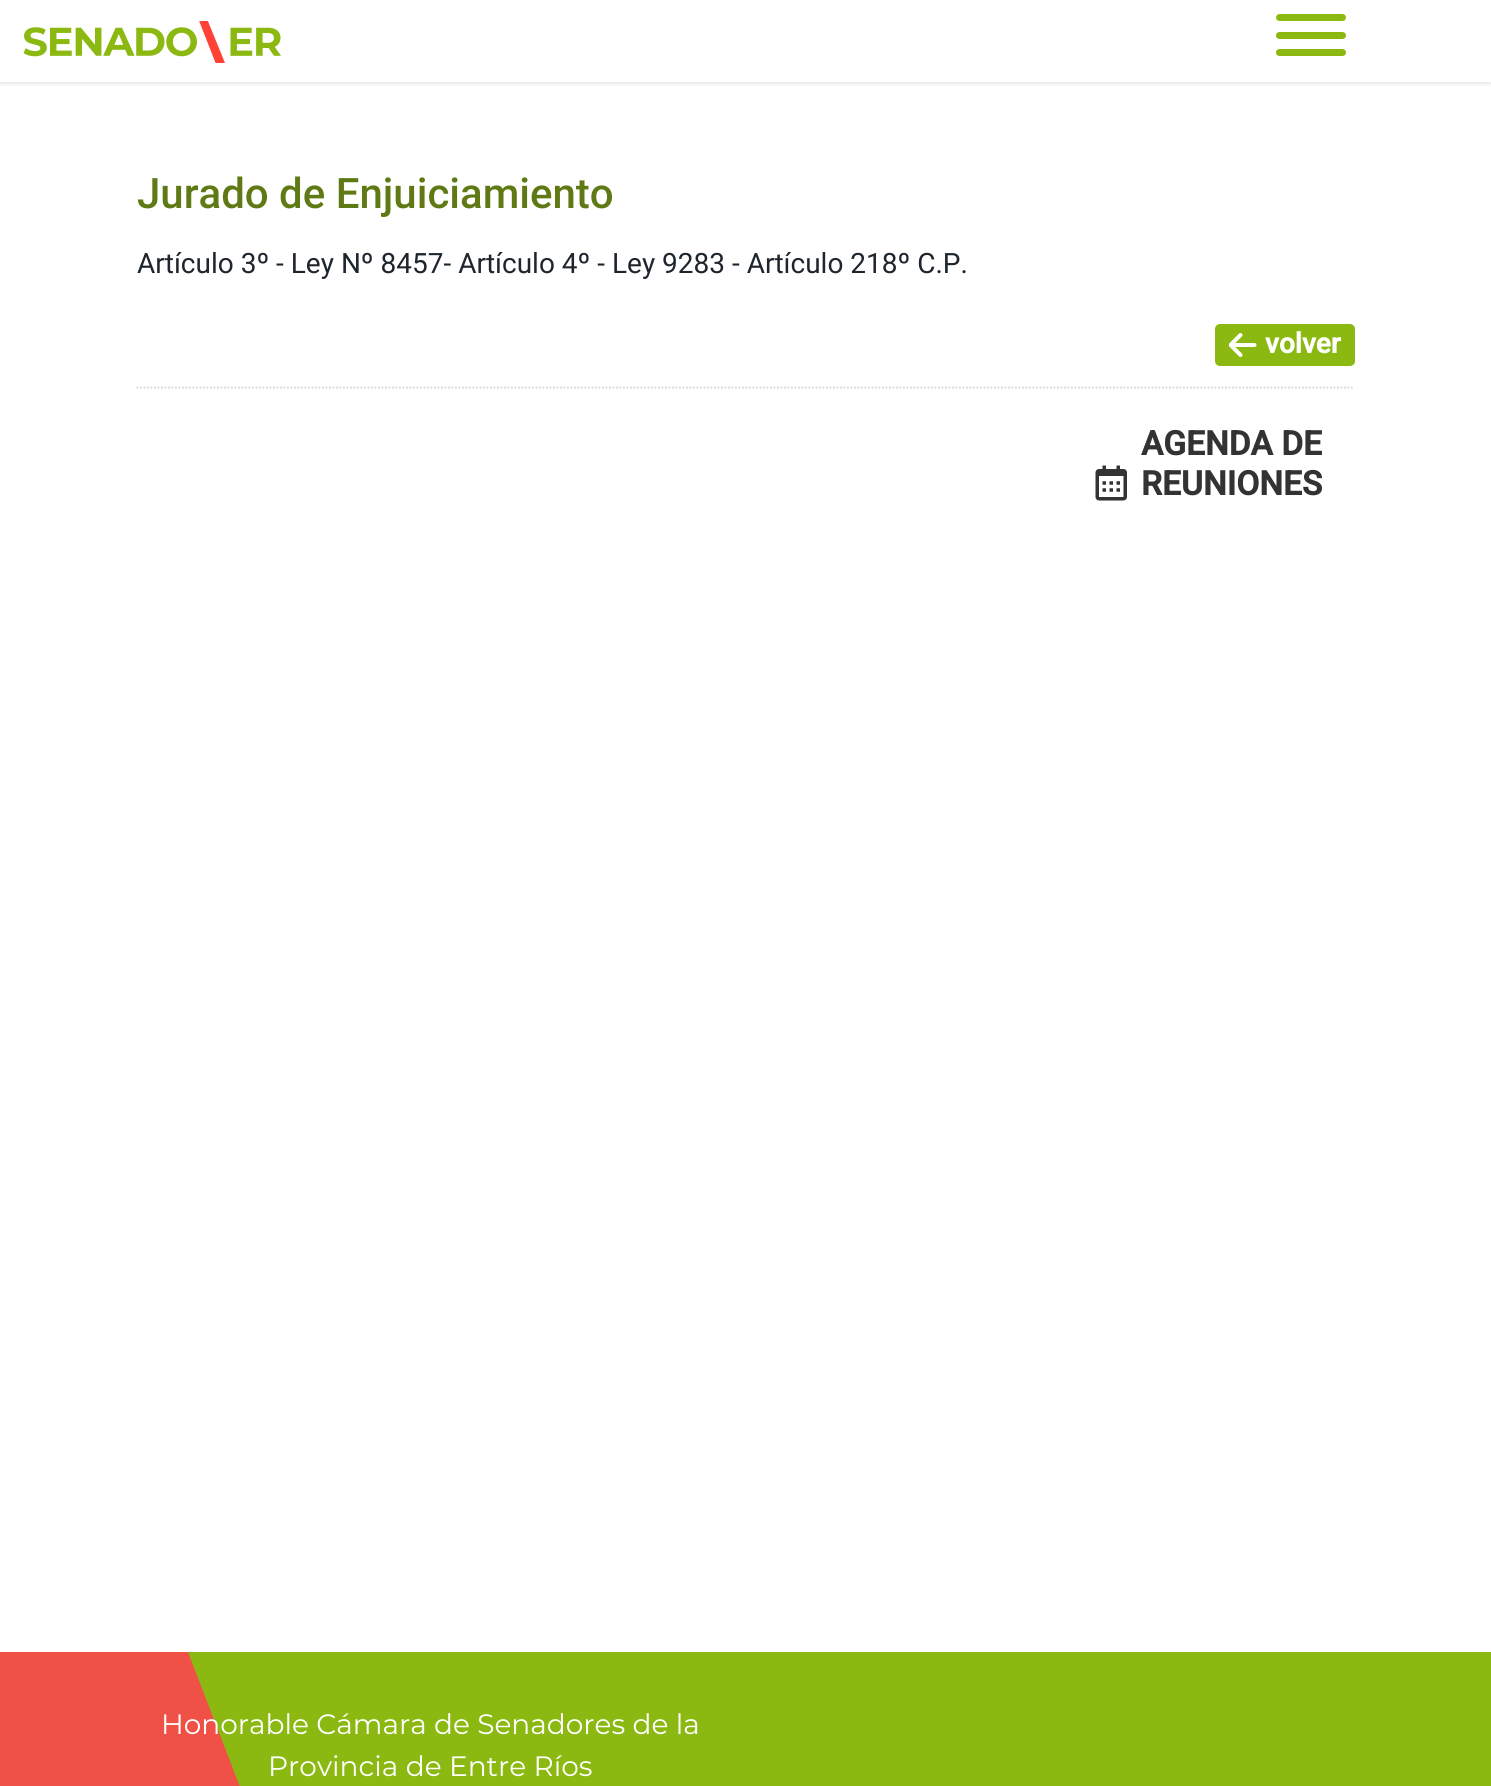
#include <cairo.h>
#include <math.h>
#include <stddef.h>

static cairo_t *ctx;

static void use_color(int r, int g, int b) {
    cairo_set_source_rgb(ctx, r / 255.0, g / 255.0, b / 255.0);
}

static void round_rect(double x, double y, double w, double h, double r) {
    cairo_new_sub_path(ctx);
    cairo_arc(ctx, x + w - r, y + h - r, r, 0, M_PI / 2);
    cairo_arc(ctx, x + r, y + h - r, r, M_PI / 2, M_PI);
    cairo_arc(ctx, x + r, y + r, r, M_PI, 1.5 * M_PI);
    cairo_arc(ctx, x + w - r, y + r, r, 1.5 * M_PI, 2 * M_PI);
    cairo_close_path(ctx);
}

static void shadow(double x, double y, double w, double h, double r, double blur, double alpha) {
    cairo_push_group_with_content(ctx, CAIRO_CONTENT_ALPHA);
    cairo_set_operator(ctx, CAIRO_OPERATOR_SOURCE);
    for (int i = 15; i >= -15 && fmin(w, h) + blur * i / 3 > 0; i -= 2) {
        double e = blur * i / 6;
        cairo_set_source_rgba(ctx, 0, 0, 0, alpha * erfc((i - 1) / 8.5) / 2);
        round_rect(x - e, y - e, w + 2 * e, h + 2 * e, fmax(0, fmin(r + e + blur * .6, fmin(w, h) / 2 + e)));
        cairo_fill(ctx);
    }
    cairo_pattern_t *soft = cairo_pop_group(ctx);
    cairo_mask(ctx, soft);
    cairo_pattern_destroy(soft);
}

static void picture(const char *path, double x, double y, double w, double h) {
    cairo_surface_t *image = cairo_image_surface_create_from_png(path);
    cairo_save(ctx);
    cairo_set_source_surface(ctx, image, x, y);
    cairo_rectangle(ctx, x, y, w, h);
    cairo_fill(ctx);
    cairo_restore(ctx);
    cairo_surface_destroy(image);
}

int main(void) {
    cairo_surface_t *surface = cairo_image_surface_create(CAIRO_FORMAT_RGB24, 1491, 1786);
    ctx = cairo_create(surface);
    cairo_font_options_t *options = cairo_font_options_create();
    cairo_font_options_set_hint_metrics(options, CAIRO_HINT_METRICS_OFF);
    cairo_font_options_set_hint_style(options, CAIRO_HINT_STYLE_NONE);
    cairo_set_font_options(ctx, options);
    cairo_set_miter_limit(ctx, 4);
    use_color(255, 255, 255);
    cairo_paint(ctx);
    cairo_save(ctx);
    cairo_rectangle(ctx, 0, 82, 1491, 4);
    cairo_clip(ctx);
    use_color(0, 0, 0);
    shadow(0, 2, 1491, 82, 0, 2, 0.1);
    cairo_restore(ctx);
    picture("img1.png", 23, 21, 258, 42);
    use_color(139, 185, 17);
    round_rect(1276, 14, 70, 7, 3.5);
    cairo_fill(ctx);
    round_rect(1276, 32, 70, 7, 3.5);
    cairo_fill(ctx);
    round_rect(1276, 49, 70, 7, 3.5);
    cairo_fill(ctx);
    cairo_new_path(ctx);
    cairo_move_to(ctx, 136.5, 387.5);
    cairo_line_to(ctx, 1354.5, 387.5);
    use_color(213, 213, 213);
    cairo_set_line_width(ctx, 1.8);
    cairo_set_dash(ctx, (double[]){1.75, 1.75}, 2, 0);
    cairo_stroke(ctx);
    cairo_select_font_face(ctx, "Roboto Medium", CAIRO_FONT_SLANT_NORMAL, CAIRO_FONT_WEIGHT_NORMAL);
    cairo_set_font_size(ctx, 42);
    use_color(95, 122, 20);
    cairo_move_to(ctx, 137, 208);
    cairo_show_text(ctx, "Jurado de Enjuiciamiento");
    cairo_select_font_face(ctx, "Roboto", CAIRO_FONT_SLANT_NORMAL, CAIRO_FONT_WEIGHT_NORMAL);
    cairo_set_font_size(ctx, 28);
    use_color(30, 37, 44);
    cairo_move_to(ctx, 137, 273);
    cairo_show_text(ctx, "Artículo 3º - Ley Nº 8457- Artículo 4º - Ley 9283 - Artículo 218º C.P.");
    use_color(139, 185, 17);
    round_rect(1215, 324, 140, 42, 5);
    cairo_fill(ctx);
    picture("img2.png", 1229, 333, 28, 24);
    cairo_select_font_face(ctx, "Roboto", CAIRO_FONT_SLANT_NORMAL, CAIRO_FONT_WEIGHT_BOLD);
    use_color(255, 255, 255);
    cairo_move_to(ctx, 1265, 353);
    cairo_show_text(ctx, "volver");
    cairo_set_font_size(ctx, 33.5);
    use_color(51, 51, 51);
    cairo_move_to(ctx, 1141, 455);
    cairo_show_text(ctx, "AGENDA DE");
    picture("img3.png", 1095, 465, 32, 36);
    cairo_move_to(ctx, 1141, 495);
    cairo_show_text(ctx, "REUNIONES");
    use_color(139, 185, 17);
    cairo_rectangle(ctx, 188, 1652, 1303, 134);
    cairo_fill(ctx);
    use_color(240, 81, 71);
    cairo_set_fill_rule(ctx, CAIRO_FILL_RULE_EVEN_ODD);
    cairo_new_path(ctx);
    cairo_move_to(ctx, 0, 1652);
    cairo_line_to(ctx, 188, 1652);
    cairo_line_to(ctx, 351, 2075);
    cairo_line_to(ctx, 0, 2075);
    cairo_close_path(ctx);
    cairo_fill(ctx);
    cairo_select_font_face(ctx, "Montserrat", CAIRO_FONT_SLANT_NORMAL, CAIRO_FONT_WEIGHT_NORMAL);
    cairo_set_font_size(ctx, 28);
    use_color(255, 255, 255);
    cairo_move_to(ctx, 161, 1734);
    cairo_show_text(ctx, "Honorable Cámara de Senadores de la");
    cairo_move_to(ctx, 268, 1776);
    cairo_show_text(ctx, "Provincia de Entre Ríos");
    cairo_surface_write_to_png(surface, "result.png");
    cairo_font_options_destroy(options);
    cairo_destroy(ctx);
    cairo_surface_destroy(surface);
    return 0;
}
